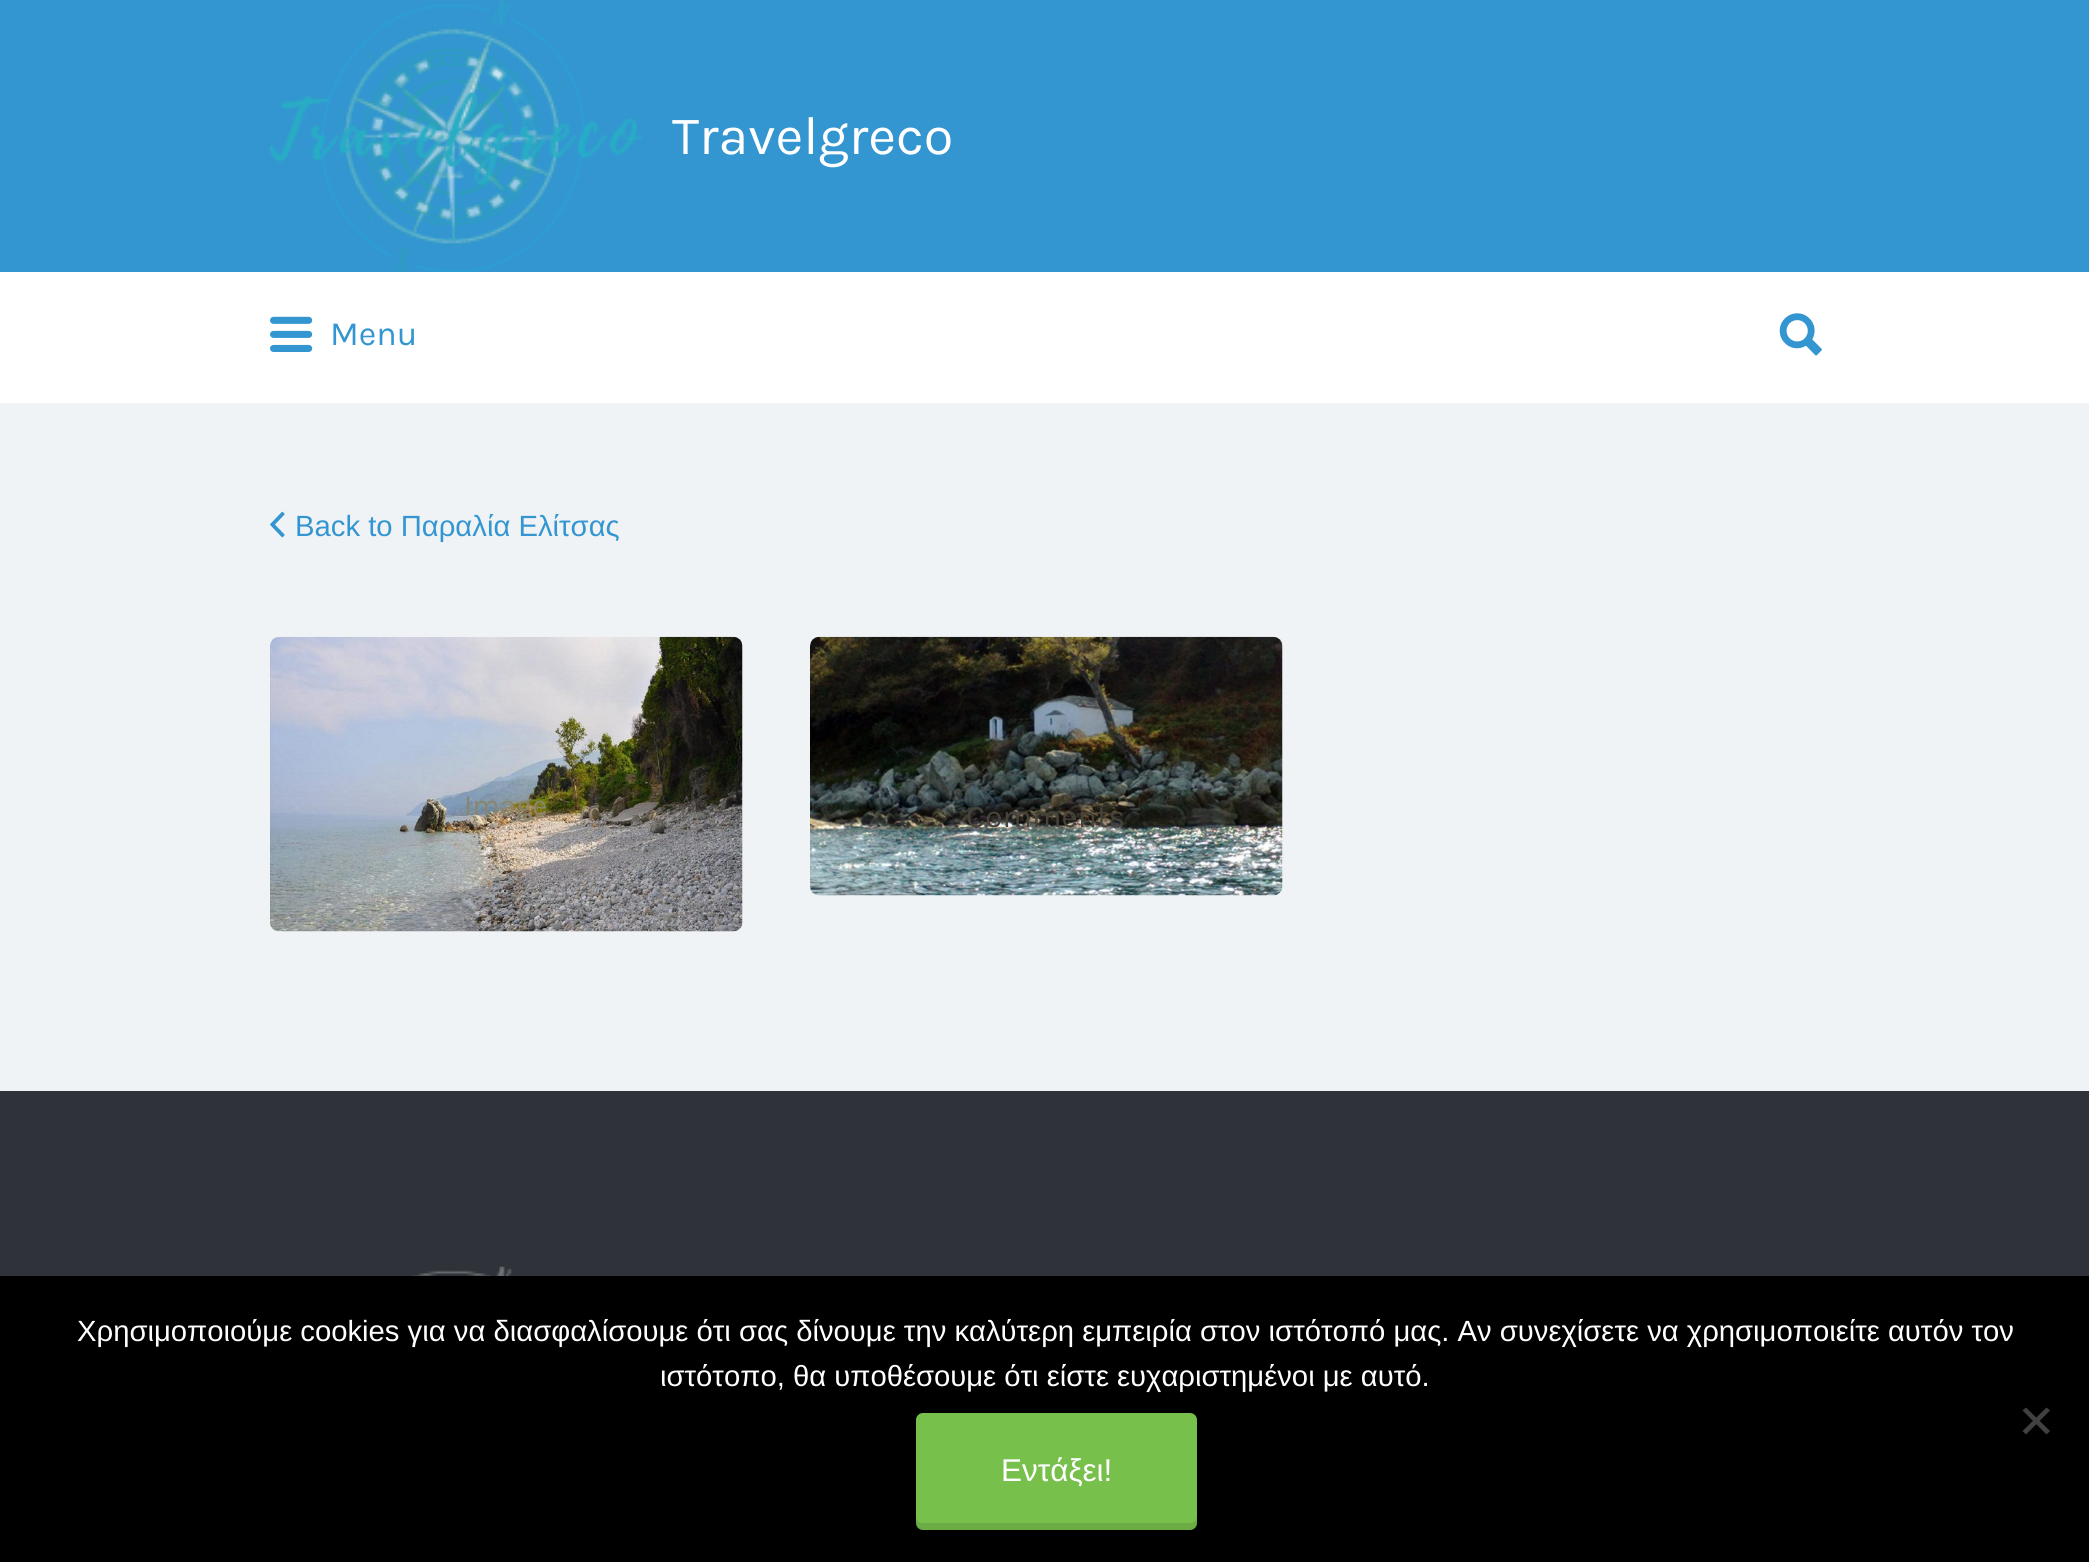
#include <cairo.h>
#include <math.h>
#include <stddef.h>

static cairo_t *ctx;

static void use_color(int r, int g, int b) {
    cairo_set_source_rgb(ctx, r / 255.0, g / 255.0, b / 255.0);
}

static void round_rect(double x, double y, double w, double h, double r) {
    cairo_new_sub_path(ctx);
    cairo_arc(ctx, x + w - r, y + h - r, r, 0, M_PI / 2);
    cairo_arc(ctx, x + r, y + h - r, r, M_PI / 2, M_PI);
    cairo_arc(ctx, x + r, y + r, r, M_PI, 1.5 * M_PI);
    cairo_arc(ctx, x + w - r, y + r, r, 1.5 * M_PI, 2 * M_PI);
    cairo_close_path(ctx);
}

static void picture(const char *path, double x, double y, double w, double h) {
    cairo_surface_t *image = cairo_image_surface_create_from_png(path);
    cairo_save(ctx);
    cairo_set_source_surface(ctx, image, x, y);
    cairo_rectangle(ctx, x, y, w, h);
    cairo_fill(ctx);
    cairo_restore(ctx);
    cairo_surface_destroy(image);
}

int main(void) {
    cairo_surface_t *surface = cairo_image_surface_create(CAIRO_FORMAT_RGB24, 2089, 1562);
    ctx = cairo_create(surface);
    cairo_font_options_t *options = cairo_font_options_create();
    cairo_font_options_set_hint_metrics(options, CAIRO_HINT_METRICS_OFF);
    cairo_font_options_set_hint_style(options, CAIRO_HINT_STYLE_NONE);
    cairo_set_font_options(ctx, options);
    cairo_set_miter_limit(ctx, 4);
    use_color(240, 243, 246);
    cairo_paint(ctx);
    use_color(51, 150, 209);
    cairo_rectangle(ctx, 0, 0, 2089, 272);
    cairo_fill(ctx);
    picture("img1.png", 270, 0, 373, 272);
    cairo_select_font_face(ctx, "Karla", CAIRO_FONT_SLANT_NORMAL, CAIRO_FONT_WEIGHT_NORMAL);
    cairo_set_font_size(ctx, 54);
    use_color(255, 255, 255);
    cairo_move_to(ctx, 672, 154);
    cairo_show_text(ctx, "Travelgreco");
    cairo_rectangle(ctx, 0, 272, 2089, 131);
    cairo_fill(ctx);
    picture("img2.png", 270, 316, 43, 36);
    cairo_set_font_size(ctx, 34);
    use_color(51, 150, 209);
    cairo_move_to(ctx, 330, 345);
    cairo_show_text(ctx, "Menu");
    picture("img3.png", 1779, 313, 43, 43);
    picture("img4.png", 270, 511, 15, 27);
    cairo_select_font_face(ctx, "Liberation Sans", CAIRO_FONT_SLANT_NORMAL, CAIRO_FONT_WEIGHT_NORMAL);
    cairo_set_font_size(ctx, 29.25);
    cairo_move_to(ctx, 295, 536);
    cairo_show_text(ctx, "Back to Παραλία Ελίτσας");
    picture("img5.png", 270, 636, 473, 296);
    cairo_select_font_face(ctx, "Karla", CAIRO_FONT_SLANT_NORMAL, CAIRO_FONT_WEIGHT_NORMAL);
    use_color(135, 134, 110);
    cairo_move_to(ctx, 464, 815);
    cairo_show_text(ctx, "Image");
    picture("img6.png", 810, 636, 473, 260);
    cairo_set_font_size(ctx, 31.5);
    use_color(70, 67, 59);
    cairo_move_to(ctx, 966, 827);
    cairo_show_text(ctx, "Comments");
    use_color(47, 51, 57);
    cairo_rectangle(ctx, 0, 1091, 2089, 185);
    cairo_fill(ctx);
    picture("img7.png", 412, 1266, 101, 10);
    use_color(0, 0, 0);
    cairo_rectangle(ctx, 0, 1276, 2089, 286);
    cairo_fill(ctx);
    cairo_select_font_face(ctx, "Liberation Sans", CAIRO_FONT_SLANT_NORMAL, CAIRO_FONT_WEIGHT_NORMAL);
    cairo_set_font_size(ctx, 29.25);
    use_color(255, 255, 255);
    cairo_move_to(ctx, 77, 1341);
    cairo_show_text(ctx, "Χρησιμοποιούμε cookies για να διασφαλίσουμε ότι σας δίνουμε την καλύτερη εμπειρία στον ιστότοπό μας. Αν συνεχίσετε να χρησιμοποιείτε αυτόν τον");
    cairo_move_to(ctx, 660, 1386);
    cairo_show_text(ctx, "ιστότοπο, θα υποθέσουμε ότι είστε ευχαριστημένοι με αυτό.");
    use_color(64, 64, 64);
    cairo_new_path(ctx);
    cairo_move_to(ctx, 2046.5, 1407.5);
    cairo_line_to(ctx, 2050, 1410.5);
    cairo_line_to(ctx, 2026, 1434.5);
    cairo_line_to(ctx, 2022.5, 1431);
    cairo_close_path(ctx);
    cairo_fill(ctx);
    cairo_new_path(ctx);
    cairo_move_to(ctx, 2022.5, 1410.5);
    cairo_line_to(ctx, 2026, 1407.5);
    cairo_line_to(ctx, 2050, 1431);
    cairo_line_to(ctx, 2046.5, 1434.5);
    cairo_close_path(ctx);
    cairo_fill(ctx);
    use_color(119, 192, 75);
    round_rect(916, 1413, 281, 117, 7);
    cairo_fill(ctx);
    cairo_set_source_rgba(ctx, 0, 0, 0, 0.1);
    cairo_new_path(ctx);
    cairo_move_to(ctx, 916, 1516);
    cairo_line_to(ctx, 916, 1523);
    cairo_curve_to(ctx, 916, 1527, 919, 1530, 923, 1530);
    cairo_line_to(ctx, 1190, 1530);
    cairo_curve_to(ctx, 1194, 1530, 1197, 1527, 1197, 1523);
    cairo_line_to(ctx, 1197, 1516);
    cairo_curve_to(ctx, 1197, 1520, 1194, 1523, 1190, 1523);
    cairo_line_to(ctx, 922, 1523);
    cairo_curve_to(ctx, 919, 1523, 916, 1520, 916, 1516);
    cairo_close_path(ctx);
    cairo_fill(ctx);
    cairo_set_font_size(ctx, 31.5);
    use_color(255, 255, 255);
    cairo_move_to(ctx, 1001, 1481);
    cairo_show_text(ctx, "Εντάξει!");
    cairo_surface_write_to_png(surface, "result.png");
    cairo_font_options_destroy(options);
    cairo_destroy(ctx);
    cairo_surface_destroy(surface);
    return 0;
}
